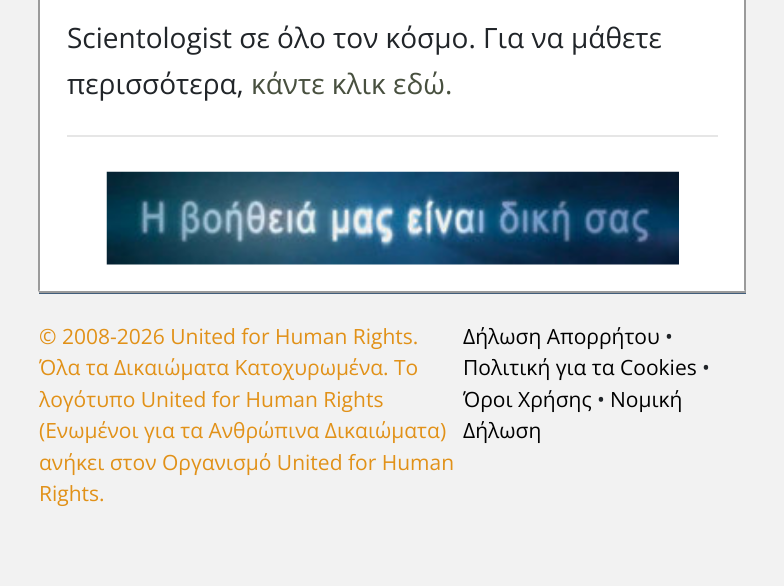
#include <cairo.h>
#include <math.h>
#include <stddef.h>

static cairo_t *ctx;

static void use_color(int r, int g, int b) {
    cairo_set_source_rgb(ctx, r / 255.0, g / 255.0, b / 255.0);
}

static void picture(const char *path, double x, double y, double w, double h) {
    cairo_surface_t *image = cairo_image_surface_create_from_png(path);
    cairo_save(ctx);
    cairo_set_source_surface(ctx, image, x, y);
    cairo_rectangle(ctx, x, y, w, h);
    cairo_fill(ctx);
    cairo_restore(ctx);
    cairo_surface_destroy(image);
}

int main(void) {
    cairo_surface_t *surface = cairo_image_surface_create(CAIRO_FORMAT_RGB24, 784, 586);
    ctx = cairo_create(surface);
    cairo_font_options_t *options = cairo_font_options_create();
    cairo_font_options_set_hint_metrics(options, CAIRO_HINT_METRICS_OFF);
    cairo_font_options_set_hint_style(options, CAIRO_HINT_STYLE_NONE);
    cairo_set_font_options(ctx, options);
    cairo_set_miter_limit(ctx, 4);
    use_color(242, 242, 242);
    cairo_paint(ctx);
    use_color(255, 255, 255);
    cairo_rectangle(ctx, 40, 0, 704, 291);
    cairo_fill(ctx);
    use_color(155, 155, 155);
    cairo_new_path(ctx);
    cairo_move_to(ctx, 746, -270);
    cairo_line_to(ctx, 746, 292);
    cairo_line_to(ctx, 744, 290);
    cairo_line_to(ctx, 744, -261);
    cairo_close_path(ctx);
    cairo_fill(ctx);
    cairo_rectangle(ctx, 39, 291, 707, 2);
    cairo_fill(ctx);
    cairo_new_path(ctx);
    cairo_move_to(ctx, 38, 292);
    cairo_line_to(ctx, 38, -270);
    cairo_line_to(ctx, 40, -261);
    cairo_line_to(ctx, 40, 290);
    cairo_close_path(ctx);
    cairo_fill(ctx);
    cairo_select_font_face(ctx, "Open Sans", CAIRO_FONT_SLANT_NORMAL, CAIRO_FONT_WEIGHT_NORMAL);
    cairo_set_font_size(ctx, 28);
    use_color(33, 37, 41);
    cairo_move_to(ctx, 67, 48);
    cairo_show_text(ctx, "Scientologist σε όλο τον κόσμο. Για να μάθετε");
    cairo_move_to(ctx, 67, 94);
    cairo_show_text(ctx, "περισσότερα,");
    use_color(72, 80, 63);
    cairo_move_to(ctx, 251, 94);
    cairo_show_text(ctx, "κάντε κλικ εδώ.");
    use_color(230, 230, 230);
    cairo_rectangle(ctx, 67, 135, 651, 2);
    cairo_fill(ctx);
    picture("img1.png", 106, 171, 573, 94);
    use_color(64, 93, 123);
    cairo_rectangle(ctx, 39, 293, 707, 1);
    cairo_fill(ctx);
    cairo_set_font_size(ctx, 21);
    use_color(225, 145, 24);
    cairo_move_to(ctx, 39, 344);
    cairo_show_text(ctx, "© 2008-2026 United for Human Rights.");
    cairo_move_to(ctx, 39, 375);
    cairo_show_text(ctx, "Όλα τα Δικαιώματα Κατοχυρωμένα. Το");
    cairo_move_to(ctx, 39, 407);
    cairo_show_text(ctx, "λογότυπο United for Human Rights");
    cairo_move_to(ctx, 39, 438);
    cairo_show_text(ctx, "(Ενωμένοι για τα Ανθρώπινα Δικαιώματα)");
    cairo_move_to(ctx, 39, 470);
    cairo_show_text(ctx, "ανήκει στον Οργανισμό United for Human");
    cairo_move_to(ctx, 39, 501);
    cairo_show_text(ctx, "Rights.");
    use_color(0, 0, 0);
    cairo_move_to(ctx, 463, 344);
    cairo_show_text(ctx, "Δήλωση Απορρήτου");
    use_color(33, 37, 41);
    cairo_move_to(ctx, 665, 344);
    cairo_show_text(ctx, "•");
    use_color(0, 0, 0);
    cairo_move_to(ctx, 463, 375);
    cairo_show_text(ctx, "Πολιτική για τα Cookies");
    use_color(33, 37, 41);
    cairo_move_to(ctx, 702, 375);
    cairo_show_text(ctx, "•");
    use_color(0, 0, 0);
    cairo_move_to(ctx, 463, 407);
    cairo_show_text(ctx, "Όροι Χρήσης");
    use_color(33, 37, 41);
    cairo_move_to(ctx, 597, 407);
    cairo_show_text(ctx, "•");
    use_color(0, 0, 0);
    cairo_move_to(ctx, 610, 407);
    cairo_show_text(ctx, "Νομική");
    cairo_move_to(ctx, 463, 438);
    cairo_show_text(ctx, "Δήλωση");
    cairo_surface_write_to_png(surface, "result.png");
    cairo_font_options_destroy(options);
    cairo_destroy(ctx);
    cairo_surface_destroy(surface);
    return 0;
}
